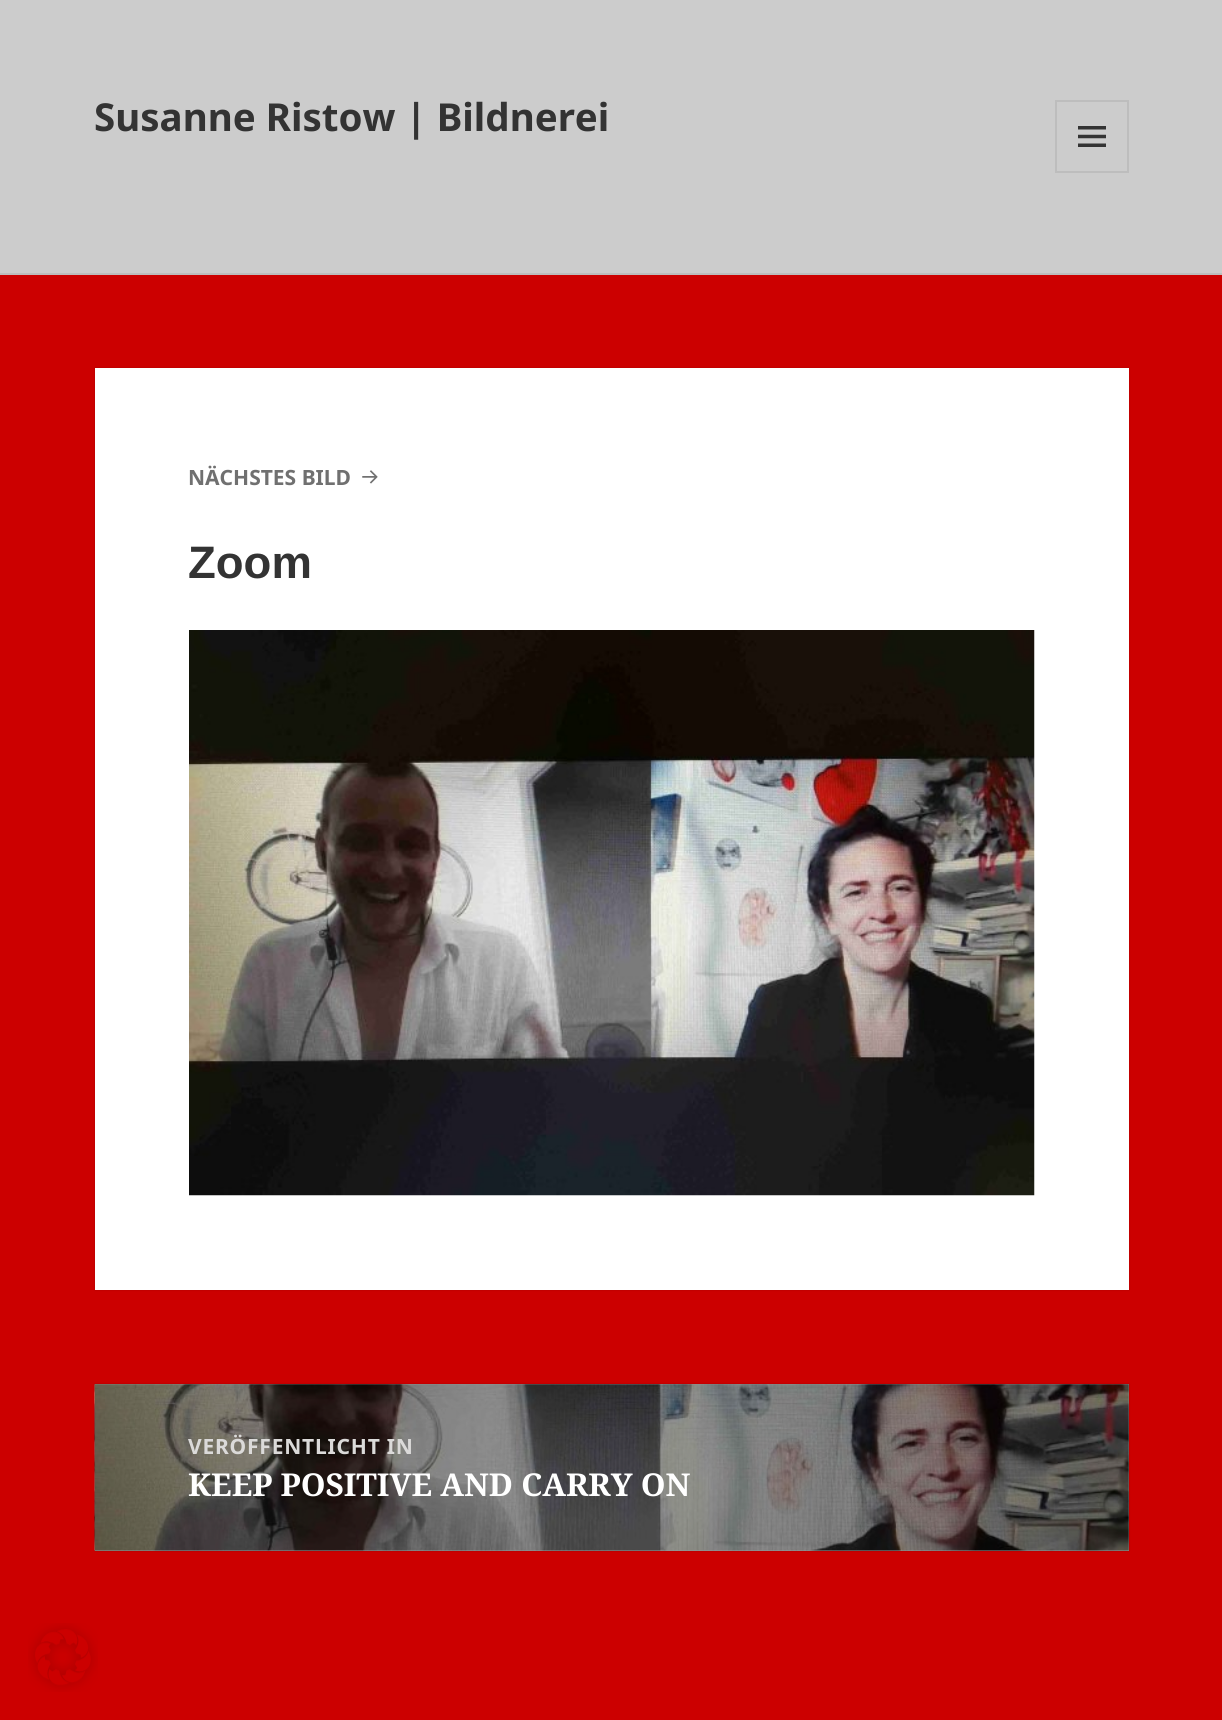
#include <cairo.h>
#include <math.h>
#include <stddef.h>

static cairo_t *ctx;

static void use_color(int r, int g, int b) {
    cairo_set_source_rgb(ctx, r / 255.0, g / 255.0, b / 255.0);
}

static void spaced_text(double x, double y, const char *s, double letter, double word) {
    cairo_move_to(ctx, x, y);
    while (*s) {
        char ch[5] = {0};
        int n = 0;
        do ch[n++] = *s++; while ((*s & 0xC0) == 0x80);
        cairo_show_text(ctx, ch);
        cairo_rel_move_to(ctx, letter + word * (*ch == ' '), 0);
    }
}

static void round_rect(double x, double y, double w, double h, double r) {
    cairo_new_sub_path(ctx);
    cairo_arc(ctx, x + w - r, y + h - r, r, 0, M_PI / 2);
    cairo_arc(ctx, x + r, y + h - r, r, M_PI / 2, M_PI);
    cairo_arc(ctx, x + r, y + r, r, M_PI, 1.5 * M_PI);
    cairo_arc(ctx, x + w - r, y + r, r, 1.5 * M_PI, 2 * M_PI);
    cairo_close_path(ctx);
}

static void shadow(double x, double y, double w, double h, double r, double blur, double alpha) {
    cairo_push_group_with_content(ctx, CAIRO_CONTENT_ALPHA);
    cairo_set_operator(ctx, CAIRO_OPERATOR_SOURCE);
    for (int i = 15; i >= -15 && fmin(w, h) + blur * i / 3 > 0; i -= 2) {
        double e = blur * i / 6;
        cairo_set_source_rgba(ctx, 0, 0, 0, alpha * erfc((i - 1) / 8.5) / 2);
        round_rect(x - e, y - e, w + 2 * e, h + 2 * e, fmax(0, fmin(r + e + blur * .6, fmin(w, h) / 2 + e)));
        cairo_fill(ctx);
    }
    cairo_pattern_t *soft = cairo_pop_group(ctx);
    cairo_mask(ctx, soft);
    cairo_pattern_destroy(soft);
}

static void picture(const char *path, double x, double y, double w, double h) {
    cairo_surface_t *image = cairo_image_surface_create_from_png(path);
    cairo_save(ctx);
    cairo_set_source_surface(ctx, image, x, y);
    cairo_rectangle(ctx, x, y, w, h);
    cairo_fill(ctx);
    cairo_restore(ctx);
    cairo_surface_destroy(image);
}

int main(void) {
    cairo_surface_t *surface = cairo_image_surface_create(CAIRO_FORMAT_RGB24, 1222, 1720);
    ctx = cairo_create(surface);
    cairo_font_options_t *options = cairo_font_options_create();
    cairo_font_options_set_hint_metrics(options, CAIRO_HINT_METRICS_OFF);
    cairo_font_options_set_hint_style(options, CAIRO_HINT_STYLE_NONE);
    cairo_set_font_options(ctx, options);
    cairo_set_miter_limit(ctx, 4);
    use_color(204, 0, 0);
    cairo_paint(ctx);
    use_color(204, 204, 204);
    cairo_rectangle(ctx, 0, 0, 1222, 273);
    cairo_fill(ctx);
    use_color(189, 189, 189);
    cairo_rectangle(ctx, 0, 273, 1222, 2);
    cairo_fill(ctx);
    cairo_select_font_face(ctx, "Noto Sans", CAIRO_FONT_SLANT_NORMAL, CAIRO_FONT_WEIGHT_BOLD);
    cairo_set_font_size(ctx, 38.5);
    use_color(51, 51, 51);
    cairo_move_to(ctx, 94, 131);
    cairo_show_text(ctx, "Susanne Ristow | Bildnerei");
    cairo_rectangle(ctx, 1056, 101, 72, 71);
    use_color(189, 189, 189);
    cairo_stroke(ctx);
    picture("img1.png", 1078, 126, 28, 21);
    use_color(0, 0, 0);
    shadow(95, 368, 1034, 922, 0, 1, 0.15);
    use_color(255, 255, 255);
    cairo_rectangle(ctx, 95, 368, 1034, 922);
    cairo_fill(ctx);
    cairo_set_font_size(ctx, 21);
    use_color(112, 112, 112);
    cairo_move_to(ctx, 188, 485);
    cairo_show_text(ctx, "NÄCHSTES BILD");
    picture("img2.png", 362, 470, 16, 14);
    cairo_select_font_face(ctx, "Liberation Sans", CAIRO_FONT_SLANT_NORMAL, CAIRO_FONT_WEIGHT_BOLD);
    cairo_set_font_size(ctx, 45.5);
    use_color(51, 51, 51);
    cairo_move_to(ctx, 188, 578);
    cairo_show_text(ctx, "Zoom");
    picture("img3.png", 189, 630, 846, 566);
    use_color(0, 0, 0);
    shadow(95, 1384, 1034, 167, 0, 1, 0.15);
    use_color(255, 255, 255);
    cairo_rectangle(ctx, 95, 1384, 1034, 167);
    cairo_fill(ctx);
    picture("img4.png", 94, 1384, 1035, 167);
    cairo_set_source_rgba(ctx, 0, 0, 0, 0.4);
    cairo_rectangle(ctx, 95, 1384, 1034, 167);
    cairo_fill(ctx);
    cairo_select_font_face(ctx, "Noto Sans", CAIRO_FONT_SLANT_NORMAL, CAIRO_FONT_WEIGHT_BOLD);
    cairo_set_font_size(ctx, 21);
    use_color(219, 218, 217);
    spaced_text(188, 1454, "VERÖFFENTLICHT IN", 0.8, 0);
    cairo_select_font_face(ctx, "Noto Serif", CAIRO_FONT_SLANT_NORMAL, CAIRO_FONT_WEIGHT_BOLD);
    cairo_set_font_size(ctx, 31.5);
    use_color(255, 255, 255);
    cairo_move_to(ctx, 188, 1496);
    cairo_show_text(ctx, "KEEP POSITIVE AND CARRY ON");
    picture("img5.png", 28, 1623, 70, 69);
    cairo_surface_write_to_png(surface, "result.png");
    cairo_font_options_destroy(options);
    cairo_destroy(ctx);
    cairo_surface_destroy(surface);
    return 0;
}
